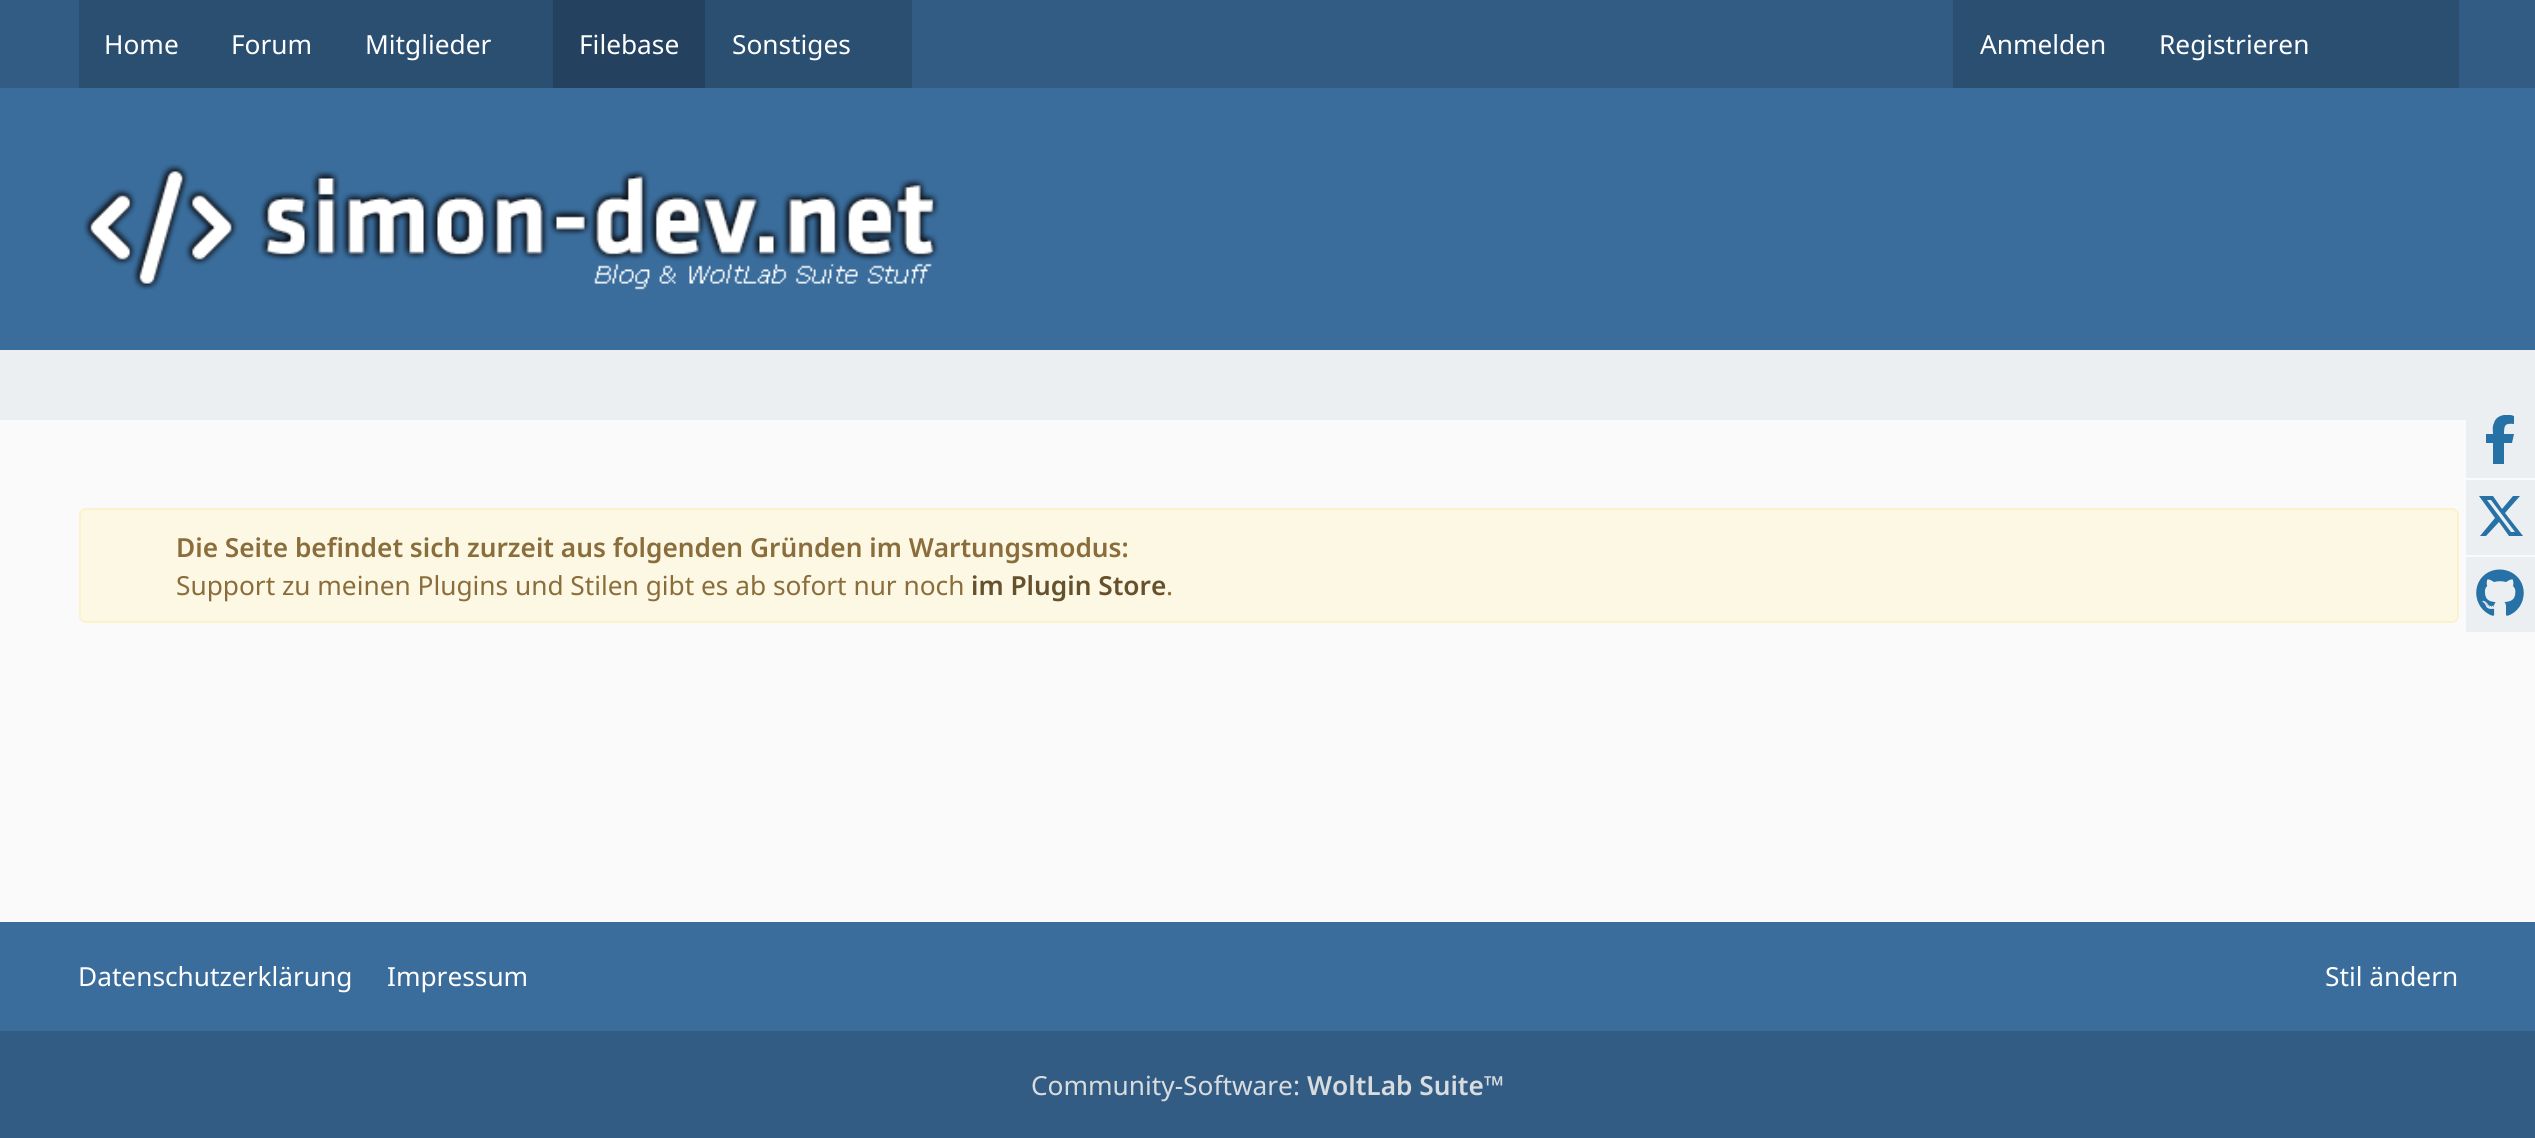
#include <cairo.h>
#include <math.h>
#include <stddef.h>

static cairo_t *ctx;

static void use_color(int r, int g, int b) {
    cairo_set_source_rgb(ctx, r / 255.0, g / 255.0, b / 255.0);
}

static void round_rect(double x, double y, double w, double h, double r) {
    cairo_new_sub_path(ctx);
    cairo_arc(ctx, x + w - r, y + h - r, r, 0, M_PI / 2);
    cairo_arc(ctx, x + r, y + h - r, r, M_PI / 2, M_PI);
    cairo_arc(ctx, x + r, y + r, r, M_PI, 1.5 * M_PI);
    cairo_arc(ctx, x + w - r, y + r, r, 1.5 * M_PI, 2 * M_PI);
    cairo_close_path(ctx);
}

static void picture(const char *path, double x, double y, double w, double h) {
    cairo_surface_t *image = cairo_image_surface_create_from_png(path);
    cairo_save(ctx);
    cairo_set_source_surface(ctx, image, x, y);
    cairo_rectangle(ctx, x, y, w, h);
    cairo_fill(ctx);
    cairo_restore(ctx);
    cairo_surface_destroy(image);
}

int main(void) {
    cairo_surface_t *surface = cairo_image_surface_create(CAIRO_FORMAT_RGB24, 2535, 1138);
    ctx = cairo_create(surface);
    cairo_font_options_t *options = cairo_font_options_create();
    cairo_font_options_set_hint_metrics(options, CAIRO_HINT_METRICS_OFF);
    cairo_font_options_set_hint_style(options, CAIRO_HINT_STYLE_NONE);
    cairo_set_font_options(ctx, options);
    cairo_set_miter_limit(ctx, 4);
    use_color(250, 250, 250);
    cairo_paint(ctx);
    use_color(58, 109, 156);
    cairo_rectangle(ctx, 0, 88, 2535, 262);
    cairo_fill(ctx);
    use_color(50, 92, 132);
    cairo_rectangle(ctx, 0, 0, 2535, 88);
    cairo_fill(ctx);
    use_color(43, 79, 113);
    cairo_rectangle(ctx, 79, 0, 474, 88);
    cairo_fill(ctx);
    cairo_select_font_face(ctx, "Noto Sans", CAIRO_FONT_SLANT_NORMAL, CAIRO_FONT_WEIGHT_NORMAL);
    cairo_set_font_size(ctx, 26.25);
    use_color(255, 255, 255);
    cairo_move_to(ctx, 104, 54);
    cairo_show_text(ctx, "Home");
    cairo_move_to(ctx, 231, 54);
    cairo_show_text(ctx, "Forum");
    cairo_move_to(ctx, 365, 54);
    cairo_show_text(ctx, "Mitglieder");
    use_color(36, 66, 95);
    cairo_rectangle(ctx, 553, 0, 152, 88);
    cairo_fill(ctx);
    use_color(255, 255, 255);
    cairo_move_to(ctx, 579, 54);
    cairo_show_text(ctx, "Filebase");
    use_color(43, 79, 113);
    cairo_rectangle(ctx, 705, 0, 207, 88);
    cairo_fill(ctx);
    use_color(255, 255, 255);
    cairo_move_to(ctx, 732, 54);
    cairo_show_text(ctx, "Sonstiges");
    use_color(43, 79, 113);
    cairo_rectangle(ctx, 1953, 0, 506, 88);
    cairo_fill(ctx);
    use_color(255, 255, 255);
    cairo_move_to(ctx, 1980, 54);
    cairo_show_text(ctx, "Anmelden");
    cairo_move_to(ctx, 2159, 54);
    cairo_show_text(ctx, "Registrieren");
    picture("img1.png", 83, 164, 857, 126);
    use_color(236, 239, 241);
    cairo_rectangle(ctx, 0, 350, 2535, 70);
    cairo_fill(ctx);
    use_color(252, 248, 227);
    round_rect(80, 509, 2378, 113, 6);
    cairo_fill_preserve(ctx);
    use_color(250, 242, 204);
    cairo_stroke(ctx);
    cairo_select_font_face(ctx, "Noto Sans SemiBold", CAIRO_FONT_SLANT_NORMAL, CAIRO_FONT_WEIGHT_NORMAL);
    use_color(138, 109, 59);
    cairo_move_to(ctx, 176, 557);
    cairo_show_text(ctx, "Die Seite befindet sich zurzeit aus folgenden Gründen im Wartungsmodus:");
    cairo_select_font_face(ctx, "Noto Sans", CAIRO_FONT_SLANT_NORMAL, CAIRO_FONT_WEIGHT_NORMAL);
    cairo_move_to(ctx, 176, 595);
    cairo_show_text(ctx, "Support zu meinen Plugins und Stilen gibt es ab sofort nur noch");
    cairo_select_font_face(ctx, "Noto Sans SemiBold", CAIRO_FONT_SLANT_NORMAL, CAIRO_FONT_WEIGHT_NORMAL);
    use_color(102, 81, 44);
    cairo_move_to(ctx, 971, 595);
    cairo_show_text(ctx, "im Plugin Store");
    cairo_select_font_face(ctx, "Noto Sans", CAIRO_FONT_SLANT_NORMAL, CAIRO_FONT_WEIGHT_NORMAL);
    use_color(138, 109, 59);
    cairo_move_to(ctx, 1166, 595);
    cairo_show_text(ctx, ".");
    use_color(58, 109, 156);
    cairo_rectangle(ctx, 0, 922, 2535, 109);
    cairo_fill(ctx);
    use_color(236, 239, 241);
    cairo_rectangle(ctx, 2466, 420, 69, 58);
    cairo_fill(ctx);
    cairo_save(ctx);
    cairo_rectangle(ctx, 2485, 415, 32, 49);
    cairo_clip(ctx);
    use_color(38, 113, 166);
    cairo_new_path(ctx);
    cairo_move_to(ctx, 2493, 443);
    cairo_line_to(ctx, 2493, 464);
    cairo_line_to(ctx, 2504, 464);
    cairo_line_to(ctx, 2504, 443);
    cairo_line_to(ctx, 2512, 443);
    cairo_line_to(ctx, 2514, 434);
    cairo_line_to(ctx, 2504, 434);
    cairo_curve_to(ctx, 2504, 425, 2505, 423, 2514, 424);
    cairo_line_to(ctx, 2514, 416);
    cairo_curve_to(ctx, 2507, 413, 2496, 415, 2494, 423);
    cairo_curve_to(ctx, 2492, 427, 2493, 430, 2493, 434);
    cairo_line_to(ctx, 2486, 434);
    cairo_line_to(ctx, 2486, 443);
    cairo_close_path(ctx);
    cairo_fill(ctx);
    cairo_restore(ctx);
    cairo_rectangle(ctx, 2466, 480, 69, 75);
    cairo_fill(ctx);
    use_color(38, 113, 166);
    cairo_new_path(ctx);
    cairo_move_to(ctx, 2513, 496);
    cairo_line_to(ctx, 2520, 496);
    cairo_line_to(ctx, 2505, 513);
    cairo_line_to(ctx, 2523, 536);
    cairo_line_to(ctx, 2509, 536);
    cairo_line_to(ctx, 2499, 522);
    cairo_line_to(ctx, 2486, 536);
    cairo_line_to(ctx, 2480, 536);
    cairo_line_to(ctx, 2495, 518);
    cairo_line_to(ctx, 2479, 496);
    cairo_line_to(ctx, 2493, 496);
    cairo_line_to(ctx, 2502, 509);
    cairo_close_path(ctx);
    cairo_move_to(ctx, 2511, 532);
    cairo_line_to(ctx, 2515, 532);
    cairo_line_to(ctx, 2491, 500);
    cairo_line_to(ctx, 2487, 500);
    cairo_close_path(ctx);
    cairo_fill(ctx);
    use_color(236, 239, 241);
    cairo_rectangle(ctx, 2466, 557, 69, 75);
    cairo_fill(ctx);
    picture("img2.png", 2476, 569, 48, 47);
    use_color(255, 255, 255);
    cairo_move_to(ctx, 78, 986);
    cairo_show_text(ctx, "Datenschutzerklärung");
    cairo_move_to(ctx, 387, 986);
    cairo_show_text(ctx, "Impressum");
    cairo_move_to(ctx, 2325, 986);
    cairo_show_text(ctx, "Stil ändern");
    use_color(50, 92, 132);
    cairo_rectangle(ctx, 0, 1031, 2535, 107);
    cairo_fill(ctx);
    use_color(217, 220, 222);
    cairo_move_to(ctx, 1031, 1095);
    cairo_show_text(ctx, "Community-Software:");
    cairo_select_font_face(ctx, "Noto Sans SemiBold", CAIRO_FONT_SLANT_NORMAL, CAIRO_FONT_WEIGHT_NORMAL);
    cairo_move_to(ctx, 1307, 1095);
    cairo_show_text(ctx, "WoltLab Suite™");
    cairo_surface_write_to_png(surface, "result.png");
    cairo_font_options_destroy(options);
    cairo_destroy(ctx);
    cairo_surface_destroy(surface);
    return 0;
}
